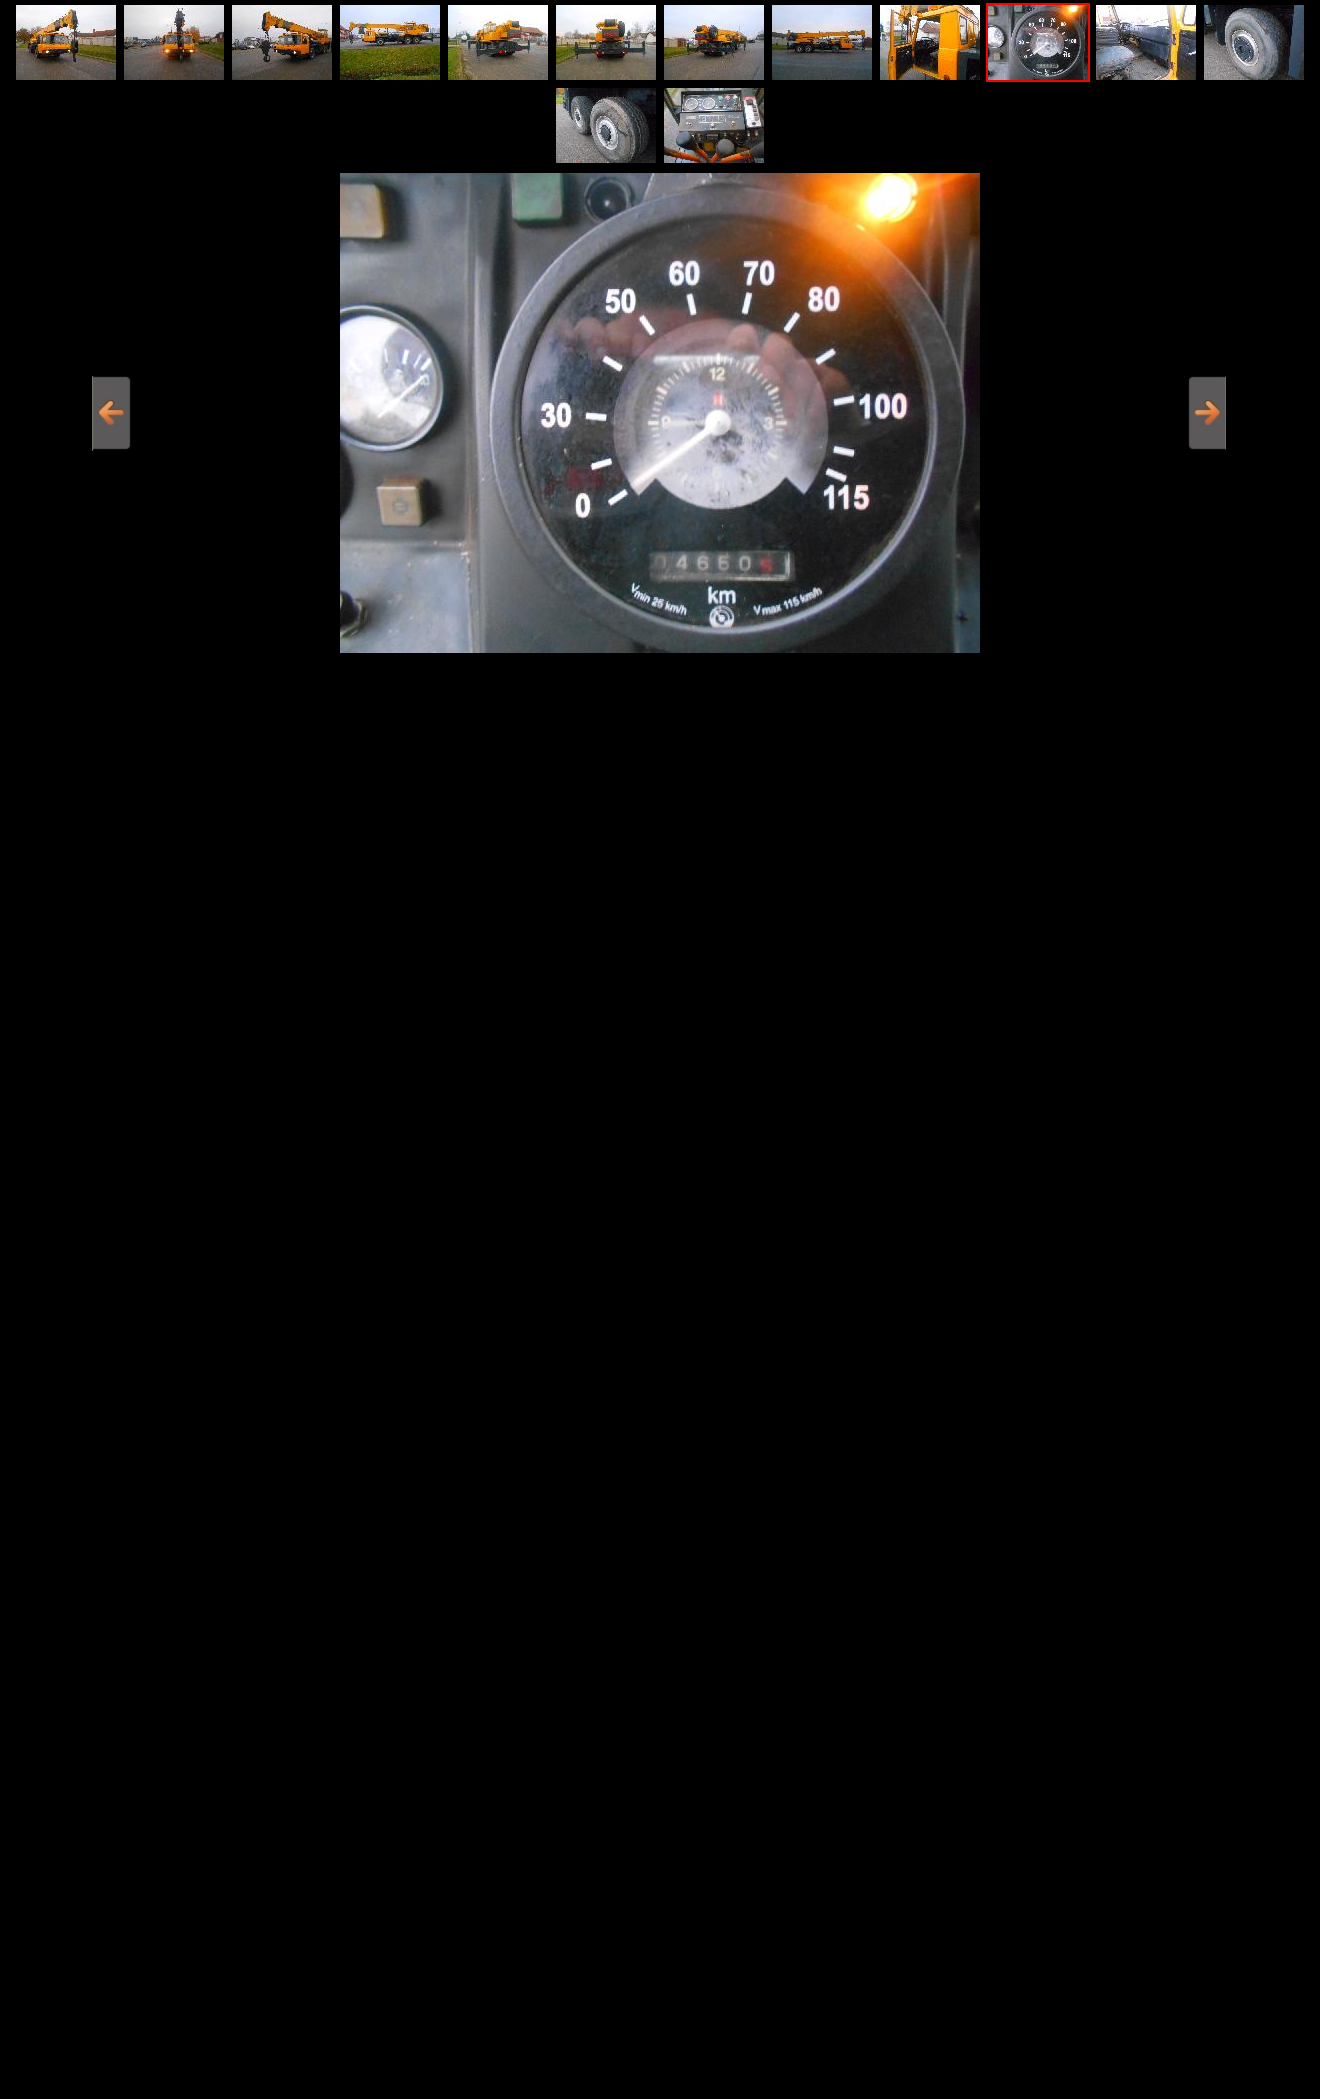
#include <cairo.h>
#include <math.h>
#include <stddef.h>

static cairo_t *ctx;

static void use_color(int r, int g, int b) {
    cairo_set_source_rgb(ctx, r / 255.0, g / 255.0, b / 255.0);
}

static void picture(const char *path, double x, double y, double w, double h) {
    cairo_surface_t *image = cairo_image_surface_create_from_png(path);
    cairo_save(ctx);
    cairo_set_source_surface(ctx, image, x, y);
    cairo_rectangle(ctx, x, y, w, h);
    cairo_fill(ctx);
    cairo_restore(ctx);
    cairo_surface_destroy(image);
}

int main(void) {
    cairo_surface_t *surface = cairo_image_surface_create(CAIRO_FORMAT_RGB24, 1320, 2099);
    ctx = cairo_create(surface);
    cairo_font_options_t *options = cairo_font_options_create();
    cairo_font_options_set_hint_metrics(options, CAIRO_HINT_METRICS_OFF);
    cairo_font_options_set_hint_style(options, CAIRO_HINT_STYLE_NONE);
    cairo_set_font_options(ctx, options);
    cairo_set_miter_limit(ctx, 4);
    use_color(0, 0, 0);
    cairo_paint(ctx);
    picture("img1.png", 16, 5, 100, 75);
    picture("img2.png", 124, 5, 100, 75);
    picture("img3.png", 232, 5, 100, 75);
    picture("img4.png", 340, 5, 100, 75);
    picture("img5.png", 448, 5, 100, 75);
    picture("img6.png", 556, 5, 100, 75);
    picture("img7.png", 664, 5, 100, 75);
    picture("img8.png", 772, 5, 100, 75);
    picture("img9.png", 880, 5, 100, 75);
    cairo_rectangle(ctx, 987, 4, 102, 77);
    use_color(255, 0, 0);
    cairo_stroke(ctx);
    picture("img10.png", 988, 5, 100, 75);
    picture("img11.png", 1096, 5, 100, 75);
    picture("img12.png", 1204, 5, 100, 75);
    picture("img13.png", 556, 88, 100, 75);
    picture("img14.png", 664, 88, 100, 75);
    picture("img15.png", 92, 376, 39, 75);
    picture("img16.png", 340, 173, 640, 480);
    picture("img17.png", 1188, 376, 38, 74);
    cairo_surface_write_to_png(surface, "result.png");
    cairo_font_options_destroy(options);
    cairo_destroy(ctx);
    cairo_surface_destroy(surface);
    return 0;
}
